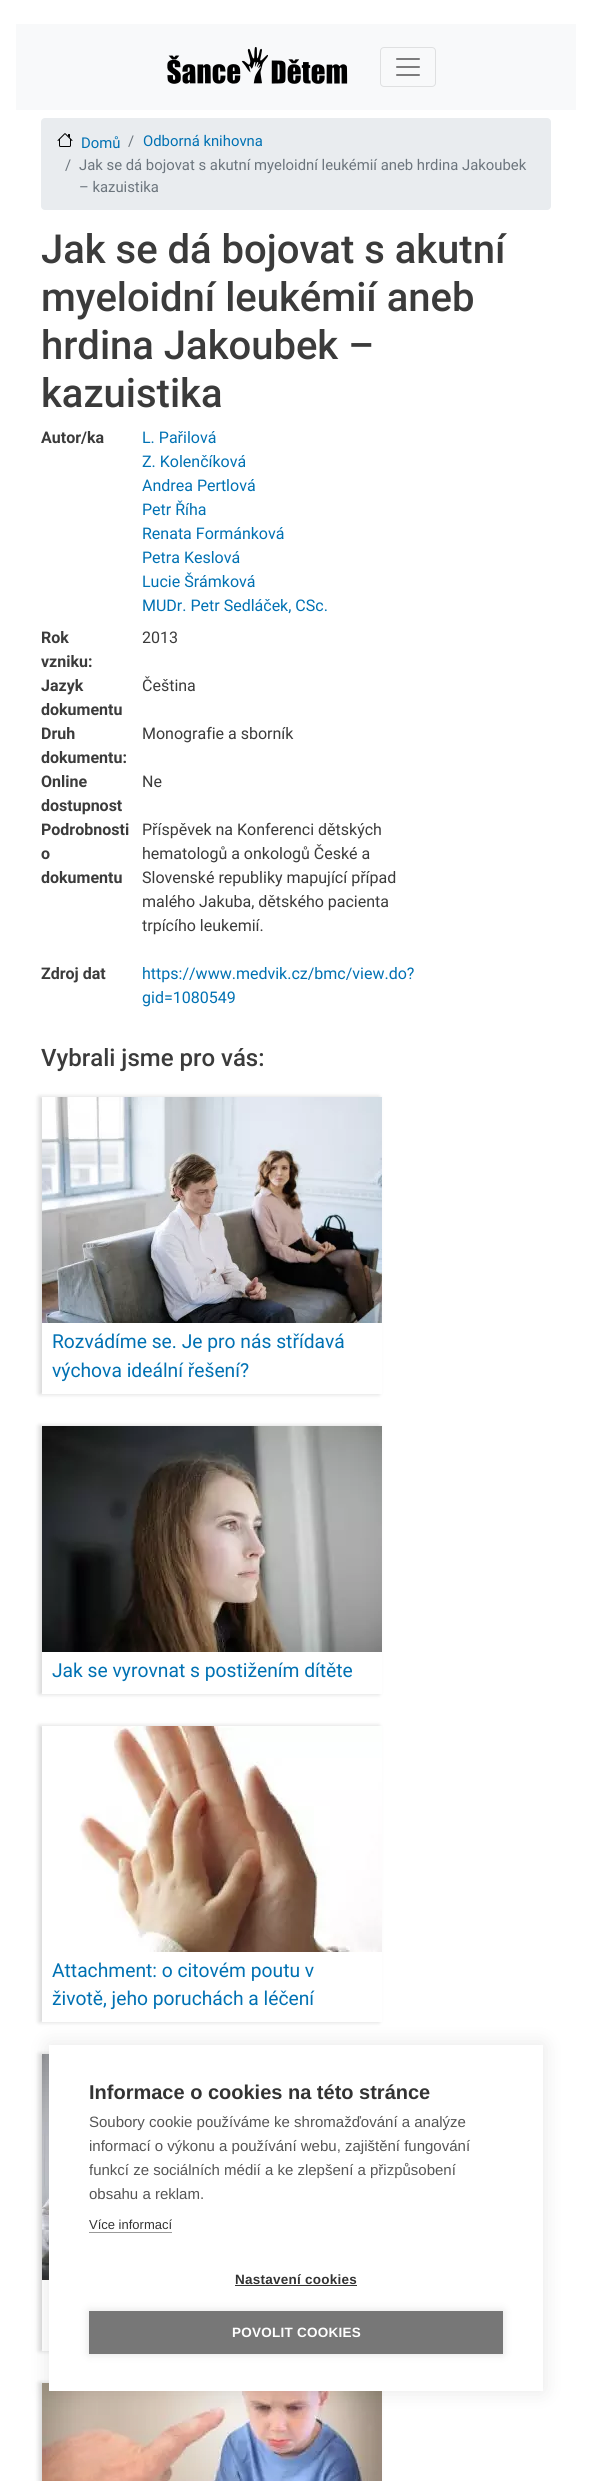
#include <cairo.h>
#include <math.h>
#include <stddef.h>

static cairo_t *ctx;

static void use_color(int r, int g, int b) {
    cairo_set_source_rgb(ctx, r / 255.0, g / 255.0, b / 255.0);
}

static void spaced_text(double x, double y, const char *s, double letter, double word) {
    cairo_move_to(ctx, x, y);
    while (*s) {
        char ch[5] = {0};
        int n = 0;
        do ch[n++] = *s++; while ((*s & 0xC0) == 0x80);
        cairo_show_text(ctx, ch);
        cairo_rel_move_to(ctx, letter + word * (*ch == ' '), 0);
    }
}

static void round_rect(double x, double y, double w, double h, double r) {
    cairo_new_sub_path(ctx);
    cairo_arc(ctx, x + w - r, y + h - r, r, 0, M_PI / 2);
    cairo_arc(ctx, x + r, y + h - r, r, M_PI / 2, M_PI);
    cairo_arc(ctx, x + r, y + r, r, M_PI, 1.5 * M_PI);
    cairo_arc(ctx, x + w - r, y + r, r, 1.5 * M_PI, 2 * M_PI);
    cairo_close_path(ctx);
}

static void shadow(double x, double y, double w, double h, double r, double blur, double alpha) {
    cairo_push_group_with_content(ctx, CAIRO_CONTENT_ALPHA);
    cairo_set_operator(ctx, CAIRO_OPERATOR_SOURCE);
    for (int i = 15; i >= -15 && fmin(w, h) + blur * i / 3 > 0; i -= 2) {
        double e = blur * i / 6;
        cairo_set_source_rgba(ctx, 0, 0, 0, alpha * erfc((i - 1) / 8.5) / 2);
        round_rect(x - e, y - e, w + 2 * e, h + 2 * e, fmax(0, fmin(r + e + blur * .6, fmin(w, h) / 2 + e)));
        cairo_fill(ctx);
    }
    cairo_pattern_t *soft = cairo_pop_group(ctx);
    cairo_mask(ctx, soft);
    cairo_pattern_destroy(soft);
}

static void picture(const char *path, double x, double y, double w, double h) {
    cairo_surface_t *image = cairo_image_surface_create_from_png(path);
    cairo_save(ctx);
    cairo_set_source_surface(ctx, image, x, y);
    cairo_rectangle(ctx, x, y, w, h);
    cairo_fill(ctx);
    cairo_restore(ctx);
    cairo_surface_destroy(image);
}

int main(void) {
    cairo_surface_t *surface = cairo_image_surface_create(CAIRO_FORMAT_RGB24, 592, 2481);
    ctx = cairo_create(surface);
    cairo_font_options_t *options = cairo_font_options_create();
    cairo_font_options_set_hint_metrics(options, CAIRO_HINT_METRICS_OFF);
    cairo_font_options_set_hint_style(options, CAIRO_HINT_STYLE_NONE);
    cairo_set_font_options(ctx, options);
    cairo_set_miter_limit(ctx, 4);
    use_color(255, 255, 255);
    cairo_paint(ctx);
    use_color(248, 249, 250);
    cairo_rectangle(ctx, 16, 24, 560, 86);
    cairo_fill(ctx);
    picture("img1.png", 167, 47, 181, 37);
    round_rect(380.5, 47.5, 55, 39, 3.5);
    use_color(223, 224, 225);
    cairo_set_line_width(ctx, 1);
    cairo_stroke(ctx);
    picture("img2.png", 396, 58, 24, 18);
    use_color(233, 236, 239);
    round_rect(41, 118, 510, 92, 4);
    cairo_fill(ctx);
    picture("img3.png", 57, 133, 16, 14);
    cairo_select_font_face(ctx, "Roboto", CAIRO_FONT_SLANT_NORMAL, CAIRO_FONT_WEIGHT_NORMAL);
    cairo_set_font_size(ctx, 14.85);
    use_color(0, 113, 179);
    cairo_move_to(ctx, 81, 148);
    cairo_show_text(ctx, "Domů");
    use_color(108, 117, 125);
    cairo_move_to(ctx, 128, 146);
    cairo_show_text(ctx, "/");
    use_color(0, 113, 179);
    cairo_move_to(ctx, 143, 146);
    cairo_show_text(ctx, "Odborná knihovna");
    use_color(108, 117, 125);
    cairo_move_to(ctx, 65, 170);
    cairo_show_text(ctx, "/");
    cairo_move_to(ctx, 79, 170);
    cairo_show_text(ctx, "Jak se dá bojovat s akutní myeloidní leukémií aneb hrdina Jakoubek");
    cairo_move_to(ctx, 79, 192);
    cairo_show_text(ctx, "– kazuistika");
    cairo_select_font_face(ctx, "Roboto Medium", CAIRO_FONT_SLANT_NORMAL, CAIRO_FONT_WEIGHT_NORMAL);
    cairo_set_font_size(ctx, 40);
    use_color(59, 59, 59);
    cairo_move_to(ctx, 41, 263);
    cairo_show_text(ctx, "Jak se dá bojovat s akutní");
    cairo_move_to(ctx, 41, 311);
    cairo_show_text(ctx, "myeloidní leukémií aneb");
    cairo_move_to(ctx, 41, 359);
    cairo_show_text(ctx, "hrdina Jakoubek –");
    cairo_move_to(ctx, 41, 407);
    cairo_show_text(ctx, "kazuistika");
    cairo_select_font_face(ctx, "Roboto", CAIRO_FONT_SLANT_NORMAL, CAIRO_FONT_WEIGHT_BOLD);
    cairo_set_font_size(ctx, 16);
    cairo_move_to(ctx, 41, 443);
    cairo_show_text(ctx, "Autor/ka");
    cairo_select_font_face(ctx, "Roboto", CAIRO_FONT_SLANT_NORMAL, CAIRO_FONT_WEIGHT_NORMAL);
    use_color(0, 113, 179);
    cairo_move_to(ctx, 142, 443);
    cairo_show_text(ctx, "L. Pařilová");
    cairo_move_to(ctx, 142, 467);
    cairo_show_text(ctx, "Z. Kolenčíková");
    cairo_move_to(ctx, 142, 491);
    cairo_show_text(ctx, "Andrea Pertlová");
    cairo_move_to(ctx, 142, 515);
    cairo_show_text(ctx, "Petr Říha");
    cairo_move_to(ctx, 142, 539);
    cairo_show_text(ctx, "Renata Formánková");
    cairo_move_to(ctx, 142, 563);
    cairo_show_text(ctx, "Petra Keslová");
    cairo_move_to(ctx, 142, 587);
    cairo_show_text(ctx, "Lucie Šrámková");
    cairo_move_to(ctx, 142, 611);
    cairo_show_text(ctx, "MUDr. Petr Sedláček, CSc.");
    cairo_select_font_face(ctx, "Roboto", CAIRO_FONT_SLANT_NORMAL, CAIRO_FONT_WEIGHT_BOLD);
    use_color(59, 59, 59);
    cairo_move_to(ctx, 41, 643);
    cairo_show_text(ctx, "Rok");
    cairo_move_to(ctx, 41, 667);
    cairo_show_text(ctx, "vzniku:");
    cairo_select_font_face(ctx, "Roboto", CAIRO_FONT_SLANT_NORMAL, CAIRO_FONT_WEIGHT_NORMAL);
    cairo_move_to(ctx, 142, 643);
    cairo_show_text(ctx, "2013");
    cairo_select_font_face(ctx, "Roboto", CAIRO_FONT_SLANT_NORMAL, CAIRO_FONT_WEIGHT_BOLD);
    cairo_move_to(ctx, 41, 691);
    cairo_show_text(ctx, "Jazyk");
    cairo_move_to(ctx, 41, 715);
    cairo_show_text(ctx, "dokumentu");
    cairo_select_font_face(ctx, "Roboto", CAIRO_FONT_SLANT_NORMAL, CAIRO_FONT_WEIGHT_NORMAL);
    cairo_move_to(ctx, 142, 691);
    cairo_show_text(ctx, "Čeština");
    cairo_select_font_face(ctx, "Roboto", CAIRO_FONT_SLANT_NORMAL, CAIRO_FONT_WEIGHT_BOLD);
    cairo_move_to(ctx, 41, 739);
    cairo_show_text(ctx, "Druh");
    cairo_move_to(ctx, 41, 763);
    cairo_show_text(ctx, "dokumentu:");
    cairo_select_font_face(ctx, "Roboto", CAIRO_FONT_SLANT_NORMAL, CAIRO_FONT_WEIGHT_NORMAL);
    cairo_move_to(ctx, 142, 739);
    cairo_show_text(ctx, "Monografie a sborník");
    cairo_select_font_face(ctx, "Roboto", CAIRO_FONT_SLANT_NORMAL, CAIRO_FONT_WEIGHT_BOLD);
    cairo_move_to(ctx, 41, 787);
    cairo_show_text(ctx, "Online");
    cairo_move_to(ctx, 41, 811);
    cairo_show_text(ctx, "dostupnost");
    cairo_select_font_face(ctx, "Roboto", CAIRO_FONT_SLANT_NORMAL, CAIRO_FONT_WEIGHT_NORMAL);
    cairo_move_to(ctx, 142, 787);
    cairo_show_text(ctx, "Ne");
    cairo_select_font_face(ctx, "Roboto", CAIRO_FONT_SLANT_NORMAL, CAIRO_FONT_WEIGHT_BOLD);
    cairo_move_to(ctx, 41, 835);
    cairo_show_text(ctx, "Podrobnosti");
    cairo_move_to(ctx, 41, 859);
    cairo_show_text(ctx, "o");
    cairo_move_to(ctx, 41, 883);
    cairo_show_text(ctx, "dokumentu");
    cairo_select_font_face(ctx, "Roboto", CAIRO_FONT_SLANT_NORMAL, CAIRO_FONT_WEIGHT_NORMAL);
    cairo_move_to(ctx, 142, 835);
    cairo_show_text(ctx, "Příspěvek na Konferenci dětských");
    cairo_move_to(ctx, 142, 859);
    cairo_show_text(ctx, "hematologů a onkologů České a");
    cairo_move_to(ctx, 142, 883);
    cairo_show_text(ctx, "Slovenské republiky mapující případ");
    cairo_move_to(ctx, 142, 907);
    cairo_show_text(ctx, "malého Jakuba, dětského pacienta");
    cairo_move_to(ctx, 142, 931);
    cairo_show_text(ctx, "trpícího leukemií.");
    cairo_select_font_face(ctx, "Roboto", CAIRO_FONT_SLANT_NORMAL, CAIRO_FONT_WEIGHT_BOLD);
    cairo_move_to(ctx, 41, 979);
    cairo_show_text(ctx, "Zdroj dat");
    cairo_select_font_face(ctx, "Roboto", CAIRO_FONT_SLANT_NORMAL, CAIRO_FONT_WEIGHT_NORMAL);
    use_color(0, 113, 179);
    cairo_move_to(ctx, 142, 979);
    cairo_show_text(ctx, "https://www.medvik.cz/bmc/view.do?");
    cairo_move_to(ctx, 142, 1003);
    cairo_show_text(ctx, "gid=1080549");
    cairo_select_font_face(ctx, "Roboto Medium", CAIRO_FONT_SLANT_NORMAL, CAIRO_FONT_WEIGHT_NORMAL);
    cairo_set_font_size(ctx, 24);
    use_color(59, 59, 59);
    cairo_move_to(ctx, 41, 1066);
    cairo_show_text(ctx, "Vybrali jsme pro vás:");
    cairo_save(ctx);
    cairo_set_fill_rule(ctx, CAIRO_FILL_RULE_EVEN_ODD);
    cairo_new_path(ctx);
    cairo_move_to(ctx, 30, 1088);
    cairo_line_to(ctx, 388, 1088);
    cairo_line_to(ctx, 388, 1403);
    cairo_line_to(ctx, 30, 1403);
    cairo_close_path(ctx);
    cairo_move_to(ctx, 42, 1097);
    cairo_line_to(ctx, 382, 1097);
    cairo_line_to(ctx, 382, 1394);
    cairo_line_to(ctx, 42, 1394);
    cairo_close_path(ctx);
    cairo_clip(ctx);
    use_color(0, 0, 0);
    shadow(39, 1097, 340, 297, 0, 2.5, 0.16);
    cairo_restore(ctx);
    picture("img4.png", 42, 1097, 340, 226);
    cairo_select_font_face(ctx, "Roboto", CAIRO_FONT_SLANT_NORMAL, CAIRO_FONT_WEIGHT_NORMAL);
    cairo_set_font_size(ctx, 19.25);
    use_color(0, 113, 179);
    cairo_move_to(ctx, 52, 1348);
    cairo_show_text(ctx, "Rozvádíme se. Je pro nás střídavá");
    cairo_move_to(ctx, 52, 1377);
    cairo_show_text(ctx, "výchova ideální řešení?");
    cairo_save(ctx);
    cairo_set_fill_rule(ctx, CAIRO_FILL_RULE_EVEN_ODD);
    cairo_new_path(ctx);
    cairo_move_to(ctx, 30, 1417);
    cairo_line_to(ctx, 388, 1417);
    cairo_line_to(ctx, 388, 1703);
    cairo_line_to(ctx, 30, 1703);
    cairo_close_path(ctx);
    cairo_move_to(ctx, 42, 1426);
    cairo_line_to(ctx, 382, 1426);
    cairo_line_to(ctx, 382, 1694);
    cairo_line_to(ctx, 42, 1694);
    cairo_close_path(ctx);
    cairo_clip(ctx);
    use_color(0, 0, 0);
    shadow(39, 1426, 340, 268, 0, 2.5, 0.16);
    cairo_restore(ctx);
    picture("img5.png", 42, 1426, 340, 226);
    cairo_move_to(ctx, 52, 1677);
    cairo_show_text(ctx, "Jak se vyrovnat s postižením dítěte");
    cairo_save(ctx);
    cairo_set_fill_rule(ctx, CAIRO_FILL_RULE_EVEN_ODD);
    cairo_new_path(ctx);
    cairo_move_to(ctx, 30, 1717);
    cairo_line_to(ctx, 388, 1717);
    cairo_line_to(ctx, 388, 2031);
    cairo_line_to(ctx, 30, 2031);
    cairo_close_path(ctx);
    cairo_move_to(ctx, 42, 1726);
    cairo_line_to(ctx, 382, 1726);
    cairo_line_to(ctx, 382, 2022);
    cairo_line_to(ctx, 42, 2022);
    cairo_close_path(ctx);
    cairo_clip(ctx);
    use_color(0, 0, 0);
    shadow(39, 1726, 340, 296, 0, 2.5, 0.16);
    cairo_restore(ctx);
    picture("img6.png", 79, 1726, 303, 226);
    cairo_move_to(ctx, 52, 1977);
    cairo_show_text(ctx, "Attachment: o citovém poutu v");
    cairo_move_to(ctx, 52, 2005);
    cairo_show_text(ctx, "životě, jeho poruchách a léčení");
    cairo_save(ctx);
    cairo_set_fill_rule(ctx, CAIRO_FILL_RULE_EVEN_ODD);
    cairo_new_path(ctx);
    cairo_move_to(ctx, 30, 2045);
    cairo_line_to(ctx, 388, 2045);
    cairo_line_to(ctx, 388, 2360);
    cairo_line_to(ctx, 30, 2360);
    cairo_close_path(ctx);
    cairo_move_to(ctx, 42, 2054);
    cairo_line_to(ctx, 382, 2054);
    cairo_line_to(ctx, 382, 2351);
    cairo_line_to(ctx, 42, 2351);
    cairo_close_path(ctx);
    cairo_clip(ctx);
    use_color(0, 0, 0);
    shadow(39, 2054, 340, 297, 0, 2.5, 0.16);
    cairo_restore(ctx);
    picture("img7.png", 42, 2054, 7, 226);
    use_color(0, 0, 0);
    shadow(39, 2383, 340, 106, 0, 2.5, 0.16);
    picture("img8.png", 42, 2383, 340, 98);
    shadow(49, 2045, 494, 346, 0, 10, 0.1);
    use_color(255, 255, 255);
    cairo_rectangle(ctx, 49, 2045, 494, 346);
    cairo_fill(ctx);
    cairo_select_font_face(ctx, "Liberation Sans", CAIRO_FONT_SLANT_NORMAL, CAIRO_FONT_WEIGHT_BOLD);
    cairo_set_font_size(ctx, 20);
    use_color(51, 51, 51);
    cairo_move_to(ctx, 89, 2099);
    cairo_show_text(ctx, "Informace o cookies na této stránce");
    cairo_select_font_face(ctx, "Liberation Sans", CAIRO_FONT_SLANT_NORMAL, CAIRO_FONT_WEIGHT_NORMAL);
    cairo_set_font_size(ctx, 15);
    use_color(85, 85, 85);
    cairo_move_to(ctx, 89, 2127);
    cairo_show_text(ctx, "Soubory cookie používáme ke shromažďování a analýze");
    cairo_move_to(ctx, 89, 2151);
    cairo_show_text(ctx, "informací o výkonu a používání webu, zajištění fungování");
    cairo_move_to(ctx, 89, 2175);
    cairo_show_text(ctx, "funkcí ze sociálních médií a ke zlepšení a přizpůsobení");
    cairo_move_to(ctx, 89, 2199);
    cairo_show_text(ctx, "obsahu a reklam.");
    cairo_set_font_size(ctx, 13);
    use_color(51, 51, 51);
    cairo_move_to(ctx, 89, 2229);
    cairo_show_text(ctx, "Více informací");
    use_color(153, 153, 153);
    cairo_rectangle(ctx, 89, 2232, 83, 1);
    cairo_fill(ctx);
    cairo_select_font_face(ctx, "Liberation Sans", CAIRO_FONT_SLANT_NORMAL, CAIRO_FONT_WEIGHT_BOLD);
    cairo_set_font_size(ctx, 13.5);
    use_color(51, 51, 51);
    spaced_text(235, 2284, "Nastavení cookies", 0.25, 0);
    cairo_rectangle(ctx, 235, 2285, 122, 1);
    cairo_fill(ctx);
    use_color(0, 0, 0);
    shadow(89, 2311, 414, 43, 0, 5, 0.12);
    use_color(119, 119, 119);
    cairo_rectangle(ctx, 89, 2311, 414, 43);
    cairo_fill(ctx);
    use_color(255, 255, 255);
    spaced_text(232, 2337, "POVOLIT COOKIES", 0.25, 0);
    cairo_surface_write_to_png(surface, "result.png");
    cairo_font_options_destroy(options);
    cairo_destroy(ctx);
    cairo_surface_destroy(surface);
    return 0;
}
